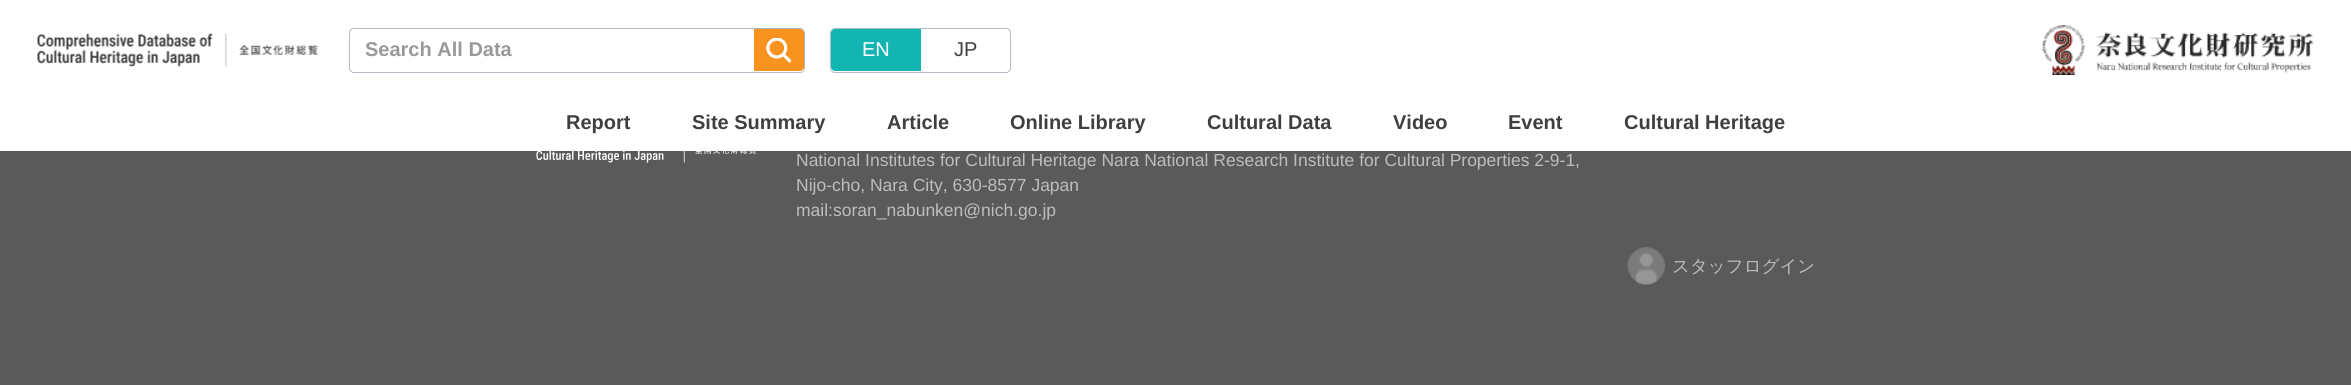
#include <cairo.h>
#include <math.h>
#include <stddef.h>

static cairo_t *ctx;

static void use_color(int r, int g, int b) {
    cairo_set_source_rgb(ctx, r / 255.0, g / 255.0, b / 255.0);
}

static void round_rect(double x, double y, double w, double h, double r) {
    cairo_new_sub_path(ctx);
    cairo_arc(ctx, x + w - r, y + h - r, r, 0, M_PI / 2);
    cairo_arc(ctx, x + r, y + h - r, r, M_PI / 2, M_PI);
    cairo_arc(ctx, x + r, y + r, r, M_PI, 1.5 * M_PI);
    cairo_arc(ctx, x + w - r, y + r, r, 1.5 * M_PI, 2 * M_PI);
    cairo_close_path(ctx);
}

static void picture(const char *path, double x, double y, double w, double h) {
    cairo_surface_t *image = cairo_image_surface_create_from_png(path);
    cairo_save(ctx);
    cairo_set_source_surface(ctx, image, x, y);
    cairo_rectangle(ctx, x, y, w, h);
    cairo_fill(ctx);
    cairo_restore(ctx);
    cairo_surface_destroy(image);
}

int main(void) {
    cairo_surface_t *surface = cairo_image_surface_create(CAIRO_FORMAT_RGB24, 2351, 385);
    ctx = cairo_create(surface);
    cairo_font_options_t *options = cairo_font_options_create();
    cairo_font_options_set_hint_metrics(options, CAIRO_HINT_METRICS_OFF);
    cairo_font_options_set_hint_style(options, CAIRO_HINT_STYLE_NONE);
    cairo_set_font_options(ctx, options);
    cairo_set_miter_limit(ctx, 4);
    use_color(90, 90, 90);
    cairo_paint(ctx);
    use_color(255, 255, 255);
    cairo_rectangle(ctx, 0, 0, 2351, 151);
    cairo_fill(ctx);
    picture("img1.png", 37, 33, 281, 34);
    round_rect(349.5, 28.5, 455, 44, 4.5);
    use_color(178, 188, 199);
    cairo_set_line_width(ctx, 1);
    cairo_stroke(ctx);
    cairo_select_font_face(ctx, "Liberation Sans", CAIRO_FONT_SLANT_NORMAL, CAIRO_FONT_WEIGHT_BOLD);
    cairo_set_font_size(ctx, 20);
    use_color(153, 153, 153);
    cairo_move_to(ctx, 365, 56);
    cairo_show_text(ctx, "Search All Data");
    use_color(247, 147, 30);
    cairo_new_path(ctx);
    cairo_move_to(ctx, 754, 29);
    cairo_line_to(ctx, 800, 29);
    cairo_curve_to(ctx, 802, 29, 804, 31, 804, 33);
    cairo_line_to(ctx, 804, 67);
    cairo_curve_to(ctx, 804, 69, 802, 71, 800, 71);
    cairo_line_to(ctx, 754, 71);
    cairo_close_path(ctx);
    cairo_fill(ctx);
    picture("img2.png", 766, 38, 25, 25);
    round_rect(830.5, 28.5, 180, 44, 4.5);
    use_color(178, 188, 199);
    cairo_stroke(ctx);
    use_color(18, 181, 177);
    cairo_new_path(ctx);
    cairo_move_to(ctx, 835, 29);
    cairo_line_to(ctx, 921, 29);
    cairo_line_to(ctx, 921, 71);
    cairo_line_to(ctx, 835, 71);
    cairo_curve_to(ctx, 833, 71, 831, 69, 831, 67);
    cairo_line_to(ctx, 831, 33);
    cairo_curve_to(ctx, 831, 31, 833, 29, 835, 29);
    cairo_close_path(ctx);
    cairo_fill(ctx);
    cairo_select_font_face(ctx, "Liberation Sans", CAIRO_FONT_SLANT_NORMAL, CAIRO_FONT_WEIGHT_NORMAL);
    use_color(255, 255, 255);
    cairo_move_to(ctx, 862, 56);
    cairo_show_text(ctx, "EN");
    use_color(63, 63, 63);
    cairo_move_to(ctx, 954, 56);
    cairo_show_text(ctx, "JP");
    picture("img3.png", 2042, 25, 272, 50);
    cairo_select_font_face(ctx, "Liberation Sans", CAIRO_FONT_SLANT_NORMAL, CAIRO_FONT_WEIGHT_BOLD);
    cairo_move_to(ctx, 566, 129);
    cairo_show_text(ctx, "Report");
    cairo_move_to(ctx, 692, 129);
    cairo_show_text(ctx, "Site Summary");
    cairo_move_to(ctx, 887, 129);
    cairo_show_text(ctx, "Article");
    cairo_move_to(ctx, 1010, 129);
    cairo_show_text(ctx, "Online Library");
    cairo_move_to(ctx, 1207, 129);
    cairo_show_text(ctx, "Cultural Data");
    cairo_move_to(ctx, 1393, 129);
    cairo_show_text(ctx, "Video");
    cairo_move_to(ctx, 1508, 129);
    cairo_show_text(ctx, "Event");
    cairo_move_to(ctx, 1624, 129);
    cairo_show_text(ctx, "Cultural Heritage");
    picture("img4.png", 536, 151, 220, 12);
    cairo_select_font_face(ctx, "Liberation Sans", CAIRO_FONT_SLANT_NORMAL, CAIRO_FONT_WEIGHT_NORMAL);
    cairo_set_font_size(ctx, 17.5);
    use_color(189, 189, 189);
    cairo_move_to(ctx, 796, 166);
    cairo_show_text(ctx, "National Institutes for Cultural Heritage Nara National Research Institute for Cultural Properties 2-9-1,");
    cairo_move_to(ctx, 796, 191);
    cairo_show_text(ctx, "Nijo-cho, Nara City, 630-8577 Japan");
    cairo_move_to(ctx, 796, 216);
    cairo_show_text(ctx, "mail:soran_nabunken@nich.go.jp");
    picture("img5.png", 1627, 247, 38, 38);
    cairo_select_font_face(ctx, "WenQuanYi Zen Hei Medium", CAIRO_FONT_SLANT_NORMAL, CAIRO_FONT_WEIGHT_NORMAL);
    cairo_move_to(ctx, 1672, 272);
    cairo_show_text(ctx, "スタッフログイン");
    cairo_surface_write_to_png(surface, "result.png");
    cairo_font_options_destroy(options);
    cairo_destroy(ctx);
    cairo_surface_destroy(surface);
    return 0;
}
